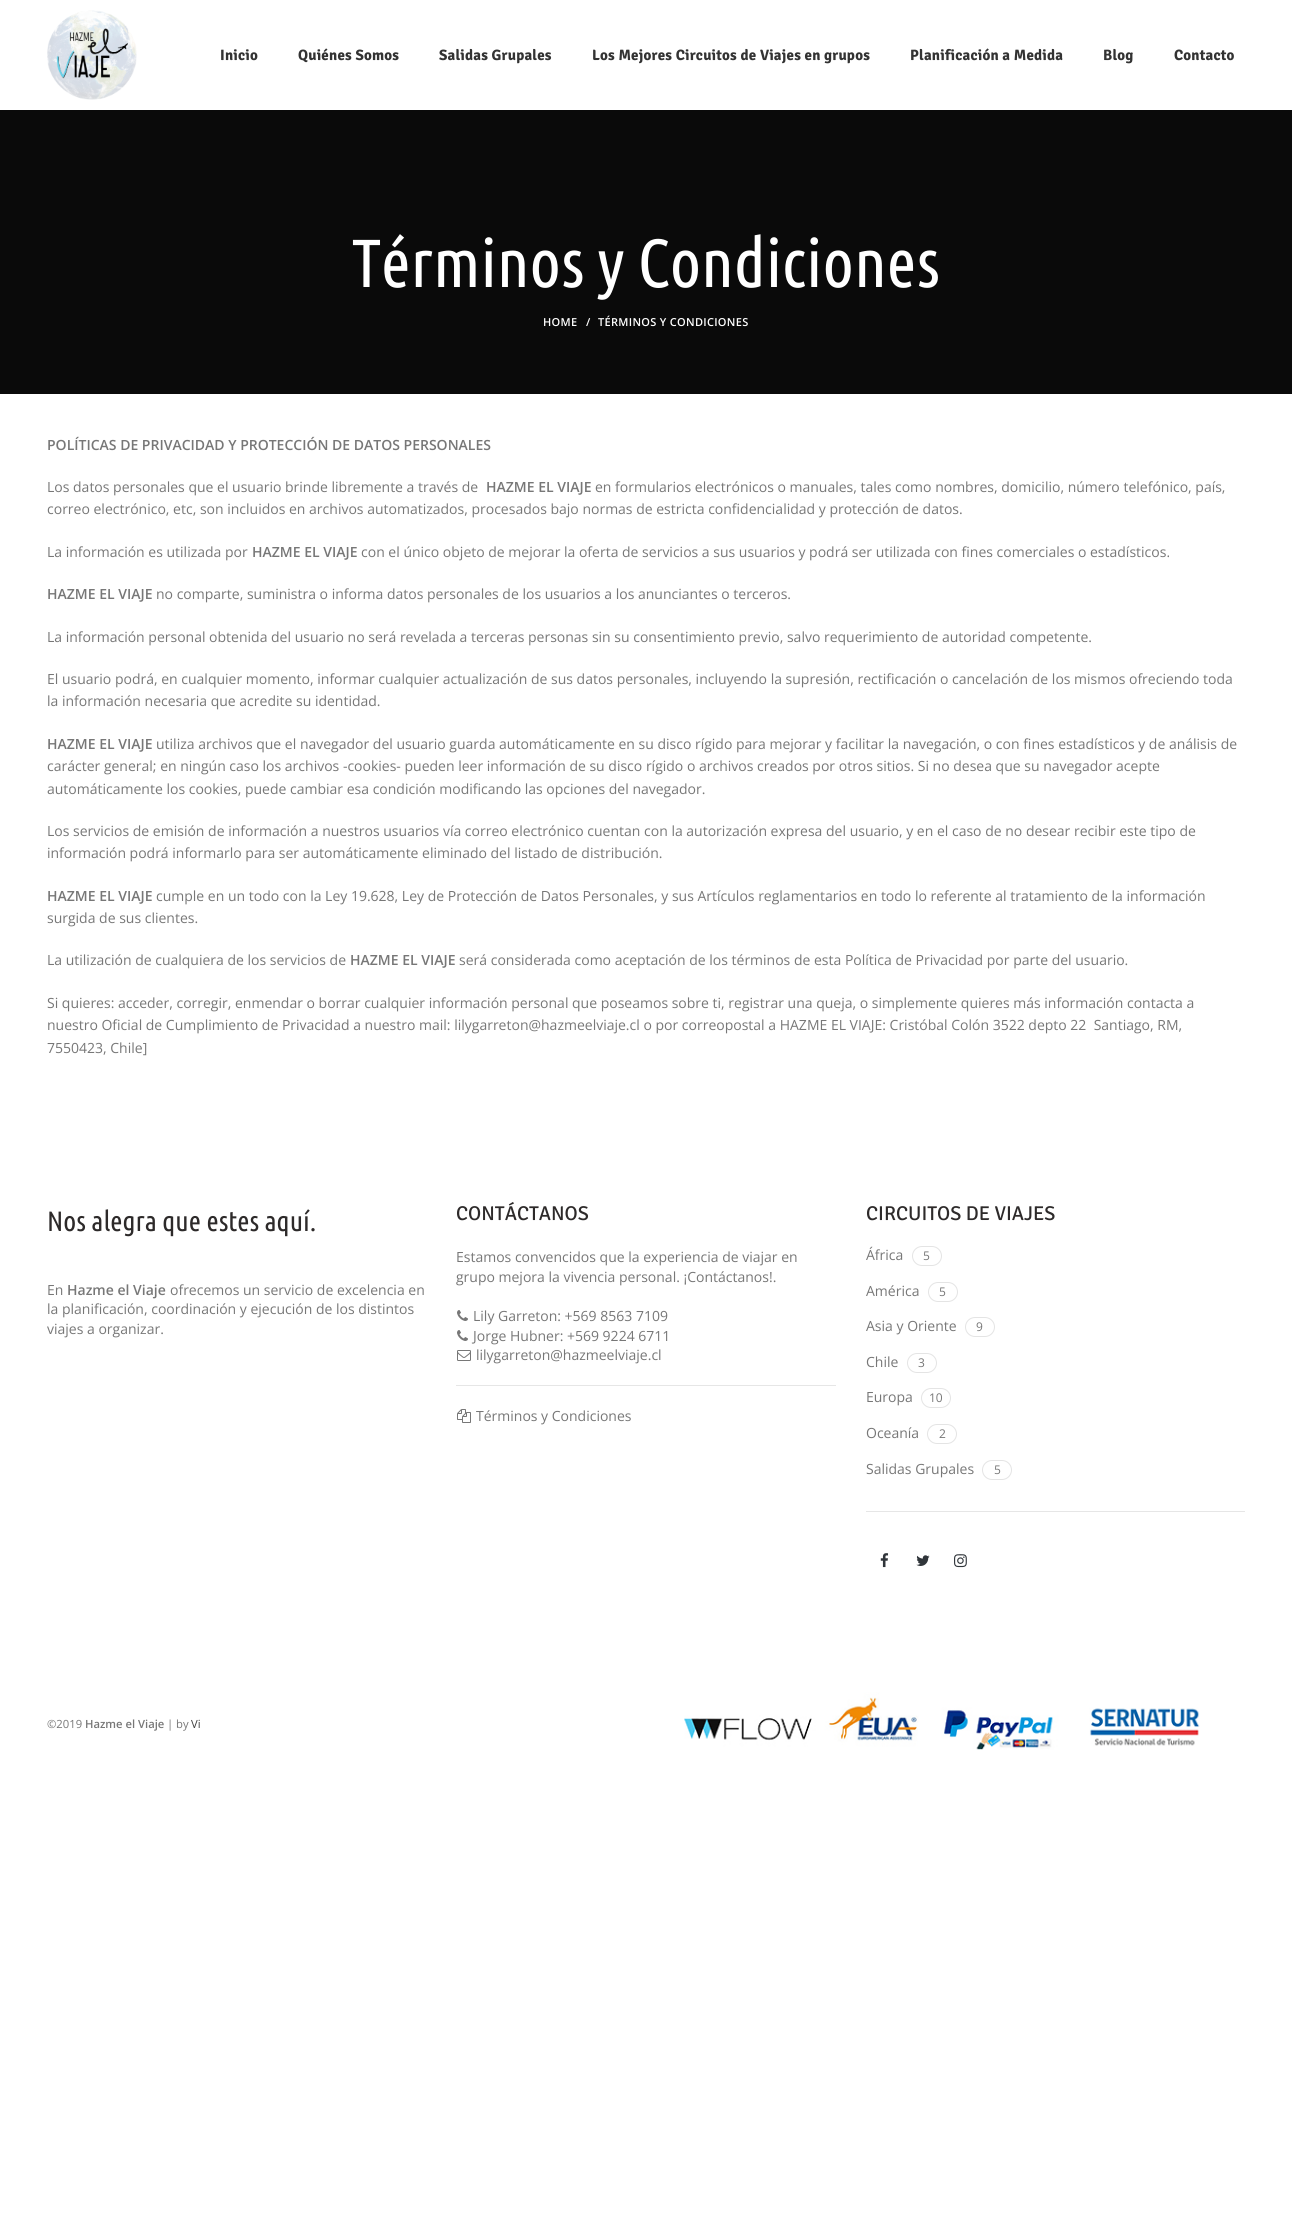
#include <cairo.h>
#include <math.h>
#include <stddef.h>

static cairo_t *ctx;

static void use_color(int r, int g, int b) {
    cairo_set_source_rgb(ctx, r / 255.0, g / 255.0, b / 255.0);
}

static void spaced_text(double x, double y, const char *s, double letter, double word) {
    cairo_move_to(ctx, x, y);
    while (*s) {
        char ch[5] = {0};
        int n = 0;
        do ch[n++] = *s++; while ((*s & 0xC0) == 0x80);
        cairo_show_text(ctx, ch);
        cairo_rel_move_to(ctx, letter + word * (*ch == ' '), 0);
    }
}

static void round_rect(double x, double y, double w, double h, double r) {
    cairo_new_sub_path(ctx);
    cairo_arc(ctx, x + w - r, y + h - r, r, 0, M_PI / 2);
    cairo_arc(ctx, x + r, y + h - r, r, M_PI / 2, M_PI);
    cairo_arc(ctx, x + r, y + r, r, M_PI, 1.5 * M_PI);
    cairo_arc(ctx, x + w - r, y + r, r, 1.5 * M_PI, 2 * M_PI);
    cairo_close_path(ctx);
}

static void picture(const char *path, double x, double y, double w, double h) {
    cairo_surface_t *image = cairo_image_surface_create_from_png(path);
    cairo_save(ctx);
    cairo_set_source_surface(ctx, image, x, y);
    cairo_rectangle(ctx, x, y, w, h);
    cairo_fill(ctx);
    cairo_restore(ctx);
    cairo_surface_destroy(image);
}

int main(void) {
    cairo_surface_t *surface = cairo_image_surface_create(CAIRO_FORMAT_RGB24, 1292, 2237);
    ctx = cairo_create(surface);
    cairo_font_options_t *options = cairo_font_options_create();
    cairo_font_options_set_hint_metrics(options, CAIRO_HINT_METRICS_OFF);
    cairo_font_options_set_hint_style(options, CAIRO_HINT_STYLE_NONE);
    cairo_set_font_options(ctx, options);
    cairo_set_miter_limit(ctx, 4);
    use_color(255, 255, 255);
    cairo_paint(ctx);
    picture("img1.png", 47, 10, 90, 90);
    cairo_select_font_face(ctx, "Signika", CAIRO_FONT_SLANT_NORMAL, CAIRO_FONT_WEIGHT_BOLD);
    cairo_set_font_size(ctx, 15);
    use_color(51, 51, 51);
    spaced_text(220, 60, "Inicio", 0.2, 0);
    spaced_text(298, 60, "Quiénes Somos", 0.2, 0);
    spaced_text(439, 60, "Salidas Grupales", 0.2, 0);
    spaced_text(592, 60, "Los Mejores Circuitos de Viajes en grupos", 0.2, 0);
    spaced_text(910, 60, "Planificación a Medida", 0.2, 0);
    spaced_text(1103, 60, "Blog", 0.2, 0);
    spaced_text(1174, 60, "Contacto", 0.2, 0);
    use_color(10, 10, 10);
    cairo_rectangle(ctx, 0, 110, 1292, 284);
    cairo_fill(ctx);
    cairo_select_font_face(ctx, "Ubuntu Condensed", CAIRO_FONT_SLANT_NORMAL, CAIRO_FONT_WEIGHT_NORMAL);
    cairo_set_font_size(ctx, 68);
    use_color(255, 255, 255);
    cairo_move_to(ctx, 352, 287);
    cairo_show_text(ctx, "Términos y Condiciones");
    cairo_select_font_face(ctx, "Open Sans SemiBold", CAIRO_FONT_SLANT_NORMAL, CAIRO_FONT_WEIGHT_NORMAL);
    cairo_set_font_size(ctx, 11);
    spaced_text(543, 326, "HOME", 0.3, 0);
    spaced_text(586, 326, "/", 0.3, 0);
    spaced_text(598, 326, "TÉRMINOS Y CONDICIONES", 0.3, 0);
    cairo_set_font_size(ctx, 14);
    use_color(119, 119, 119);
    cairo_move_to(ctx, 47, 450);
    cairo_show_text(ctx, "POLÍTICAS DE PRIVACIDAD Y PROTECCIÓN DE DATOS PERSONALES");
    cairo_select_font_face(ctx, "Open Sans", CAIRO_FONT_SLANT_NORMAL, CAIRO_FONT_WEIGHT_NORMAL);
    cairo_move_to(ctx, 47, 492);
    cairo_show_text(ctx, "Los datos personales que el usuario brinde libremente a través de");
    cairo_select_font_face(ctx, "Open Sans SemiBold", CAIRO_FONT_SLANT_NORMAL, CAIRO_FONT_WEIGHT_NORMAL);
    cairo_move_to(ctx, 486, 492);
    cairo_show_text(ctx, "HAZME EL VIAJE");
    cairo_select_font_face(ctx, "Open Sans", CAIRO_FONT_SLANT_NORMAL, CAIRO_FONT_WEIGHT_NORMAL);
    cairo_move_to(ctx, 595, 492);
    cairo_show_text(ctx, "en formularios electrónicos o manuales, tales como nombres, domicilio, número telefónico, país,");
    cairo_move_to(ctx, 47, 514);
    cairo_show_text(ctx, "correo electrónico, etc, son incluidos en archivos automatizados, procesados bajo normas de estricta confidencialidad y protección de datos.");
    cairo_move_to(ctx, 47, 557);
    cairo_show_text(ctx, "La información es utilizada por");
    cairo_select_font_face(ctx, "Open Sans SemiBold", CAIRO_FONT_SLANT_NORMAL, CAIRO_FONT_WEIGHT_NORMAL);
    cairo_move_to(ctx, 252, 557);
    cairo_show_text(ctx, "HAZME EL VIAJE");
    cairo_select_font_face(ctx, "Open Sans", CAIRO_FONT_SLANT_NORMAL, CAIRO_FONT_WEIGHT_NORMAL);
    cairo_move_to(ctx, 361, 557);
    cairo_show_text(ctx, "con el único objeto de mejorar la oferta de servicios a sus usuarios y podrá ser utilizada con fines comerciales o estadísticos.");
    cairo_select_font_face(ctx, "Open Sans SemiBold", CAIRO_FONT_SLANT_NORMAL, CAIRO_FONT_WEIGHT_NORMAL);
    cairo_move_to(ctx, 47, 599);
    cairo_show_text(ctx, "HAZME EL VIAJE");
    cairo_select_font_face(ctx, "Open Sans", CAIRO_FONT_SLANT_NORMAL, CAIRO_FONT_WEIGHT_NORMAL);
    cairo_move_to(ctx, 156, 599);
    cairo_show_text(ctx, "no comparte, suministra o informa datos personales de los usuarios a los anunciantes o terceros.");
    cairo_move_to(ctx, 47, 642);
    cairo_show_text(ctx, "La información personal obtenida del usuario no será revelada a terceras personas sin su consentimiento previo, salvo requerimiento de autoridad competente.");
    cairo_move_to(ctx, 47, 684);
    cairo_show_text(ctx, "El usuario podrá, en cualquier momento, informar cualquier actualización de sus datos personales, incluyendo la supresión, rectificación o cancelación de los mismos ofreciendo toda");
    cairo_move_to(ctx, 47, 706);
    cairo_show_text(ctx, "la información necesaria que acredite su identidad.");
    cairo_select_font_face(ctx, "Open Sans SemiBold", CAIRO_FONT_SLANT_NORMAL, CAIRO_FONT_WEIGHT_NORMAL);
    cairo_move_to(ctx, 47, 749);
    cairo_show_text(ctx, "HAZME EL VIAJE");
    cairo_select_font_face(ctx, "Open Sans", CAIRO_FONT_SLANT_NORMAL, CAIRO_FONT_WEIGHT_NORMAL);
    cairo_move_to(ctx, 156, 749);
    cairo_show_text(ctx, "utiliza archivos que el navegador del usuario guarda automáticamente en su disco rígido para mejorar y facilitar la navegación, o con fines estadísticos y de análisis de");
    cairo_move_to(ctx, 47, 771);
    cairo_show_text(ctx, "carácter general; en ningún caso los archivos -cookies- pueden leer información de su disco rígido o archivos creados por otros sitios. Si no desea que su navegador acepte");
    cairo_move_to(ctx, 47, 794);
    cairo_show_text(ctx, "automáticamente los cookies, puede cambiar esa condición modificando las opciones del navegador.");
    cairo_move_to(ctx, 47, 836);
    cairo_show_text(ctx, "Los servicios de emisión de información a nuestros usuarios vía correo electrónico cuentan con la autorización expresa del usuario, y en el caso de no desear recibir este tipo de");
    cairo_move_to(ctx, 47, 858);
    cairo_show_text(ctx, "información podrá informarlo para ser automáticamente eliminado del listado de distribución.");
    cairo_select_font_face(ctx, "Open Sans SemiBold", CAIRO_FONT_SLANT_NORMAL, CAIRO_FONT_WEIGHT_NORMAL);
    cairo_move_to(ctx, 47, 901);
    cairo_show_text(ctx, "HAZME EL VIAJE");
    cairo_select_font_face(ctx, "Open Sans", CAIRO_FONT_SLANT_NORMAL, CAIRO_FONT_WEIGHT_NORMAL);
    cairo_move_to(ctx, 156, 901);
    cairo_show_text(ctx, "cumple en un todo con la Ley 19.628, Ley de Protección de Datos Personales, y sus Artículos reglamentarios en todo lo referente al tratamiento de la información");
    cairo_move_to(ctx, 47, 923);
    cairo_show_text(ctx, "surgida de sus clientes.");
    cairo_move_to(ctx, 47, 965);
    cairo_show_text(ctx, "La utilización de cualquiera de los servicios de");
    cairo_select_font_face(ctx, "Open Sans SemiBold", CAIRO_FONT_SLANT_NORMAL, CAIRO_FONT_WEIGHT_NORMAL);
    cairo_move_to(ctx, 350, 965);
    cairo_show_text(ctx, "HAZME EL VIAJE");
    cairo_select_font_face(ctx, "Open Sans", CAIRO_FONT_SLANT_NORMAL, CAIRO_FONT_WEIGHT_NORMAL);
    cairo_move_to(ctx, 459, 965);
    cairo_show_text(ctx, "será considerada como aceptación de los términos de esta Política de Privacidad por parte del usuario.");
    cairo_move_to(ctx, 47, 1008);
    cairo_show_text(ctx, "Si quieres: acceder, corregir, enmendar o borrar cualquier información personal que poseamos sobre ti, registrar una queja, o simplemente quieres más información contacta a");
    cairo_move_to(ctx, 47, 1030);
    cairo_show_text(ctx, "nuestro Oficial de Cumplimiento de Privacidad a nuestro mail: lilygarreton@hazmeelviaje.cl o por correopostal a HAZME EL VIAJE: Cristóbal Colón 3522 depto 22  Santiago, RM,");
    cairo_move_to(ctx, 47, 1053);
    cairo_show_text(ctx, "7550423, Chile]");
    cairo_select_font_face(ctx, "Ubuntu Condensed", CAIRO_FONT_SLANT_NORMAL, CAIRO_FONT_WEIGHT_NORMAL);
    cairo_set_font_size(ctx, 28);
    use_color(45, 42, 42);
    cairo_move_to(ctx, 47, 1231);
    cairo_show_text(ctx, "Nos alegra que estes aquí.");
    cairo_select_font_face(ctx, "Open Sans", CAIRO_FONT_SLANT_NORMAL, CAIRO_FONT_WEIGHT_NORMAL);
    cairo_set_font_size(ctx, 14);
    use_color(119, 119, 119);
    cairo_move_to(ctx, 47, 1295);
    cairo_show_text(ctx, "En");
    cairo_select_font_face(ctx, "Open Sans SemiBold", CAIRO_FONT_SLANT_NORMAL, CAIRO_FONT_WEIGHT_NORMAL);
    cairo_move_to(ctx, 67, 1295);
    cairo_show_text(ctx, "Hazme el Viaje");
    cairo_select_font_face(ctx, "Open Sans", CAIRO_FONT_SLANT_NORMAL, CAIRO_FONT_WEIGHT_NORMAL);
    cairo_move_to(ctx, 170, 1295);
    cairo_show_text(ctx, "ofrecemos un servicio de excelencia en");
    cairo_move_to(ctx, 47, 1314);
    cairo_show_text(ctx, "la planificación, coordinación y ejecución de los distintos");
    cairo_move_to(ctx, 47, 1334);
    cairo_show_text(ctx, "viajes a organizar.");
    cairo_select_font_face(ctx, "Signika", CAIRO_FONT_SLANT_NORMAL, CAIRO_FONT_WEIGHT_NORMAL);
    cairo_set_font_size(ctx, 20);
    use_color(45, 42, 42);
    cairo_move_to(ctx, 456, 1220);
    cairo_show_text(ctx, "CONTÁCTANOS");
    cairo_select_font_face(ctx, "Open Sans", CAIRO_FONT_SLANT_NORMAL, CAIRO_FONT_WEIGHT_NORMAL);
    cairo_set_font_size(ctx, 14);
    use_color(119, 119, 119);
    cairo_move_to(ctx, 456, 1262);
    cairo_show_text(ctx, "Estamos convencidos que la experiencia de viajar en");
    cairo_move_to(ctx, 456, 1282);
    cairo_show_text(ctx, "grupo mejora la vivencia personal. ¡Contáctanos!.");
    picture("img2.png", 457, 1310, 11, 11);
    cairo_move_to(ctx, 473, 1321);
    cairo_show_text(ctx, "Lily Garreton: +569 8563 7109");
    picture("img2.png", 457, 1330, 11, 11);
    cairo_move_to(ctx, 473, 1341);
    cairo_show_text(ctx, "Jorge Hubner: +569 9224 6711");
    picture("img3.png", 457, 1350, 14, 11);
    cairo_move_to(ctx, 476, 1360);
    cairo_show_text(ctx, "lilygarreton@hazmeelviaje.cl");
    use_color(230, 230, 230);
    cairo_rectangle(ctx, 456, 1385, 380, 1);
    cairo_fill(ctx);
    picture("img4.png", 457, 1409, 14, 14);
    use_color(119, 119, 119);
    cairo_move_to(ctx, 476, 1421);
    cairo_show_text(ctx, "Términos y Condiciones");
    use_color(230, 230, 230);
    cairo_rectangle(ctx, 866, 1511, 379, 1);
    cairo_fill(ctx);
    cairo_select_font_face(ctx, "Signika", CAIRO_FONT_SLANT_NORMAL, CAIRO_FONT_WEIGHT_NORMAL);
    cairo_set_font_size(ctx, 20);
    use_color(45, 42, 42);
    cairo_move_to(ctx, 866, 1220);
    cairo_show_text(ctx, "CIRCUITOS DE VIAJES");
    cairo_select_font_face(ctx, "Open Sans", CAIRO_FONT_SLANT_NORMAL, CAIRO_FONT_WEIGHT_NORMAL);
    cairo_set_font_size(ctx, 14);
    use_color(119, 119, 119);
    cairo_move_to(ctx, 866, 1260);
    cairo_show_text(ctx, "África");
    round_rect(912.5, 1246.5, 29, 19, 9.5);
    use_color(228, 228, 228);
    cairo_set_line_width(ctx, 1);
    cairo_stroke(ctx);
    cairo_set_font_size(ctx, 12);
    use_color(119, 119, 119);
    cairo_move_to(ctx, 923, 1260);
    cairo_show_text(ctx, "5");
    cairo_set_font_size(ctx, 14);
    cairo_move_to(ctx, 866, 1296);
    cairo_show_text(ctx, "América");
    round_rect(928.5, 1282.5, 29, 19, 9.5);
    use_color(228, 228, 228);
    cairo_stroke(ctx);
    cairo_set_font_size(ctx, 12);
    use_color(119, 119, 119);
    cairo_move_to(ctx, 939, 1296);
    cairo_show_text(ctx, "5");
    cairo_set_font_size(ctx, 14);
    cairo_move_to(ctx, 866, 1331);
    cairo_show_text(ctx, "Asia y Oriente");
    round_rect(965.5, 1317.5, 29, 19, 9.5);
    use_color(228, 228, 228);
    cairo_stroke(ctx);
    cairo_set_font_size(ctx, 12);
    use_color(119, 119, 119);
    cairo_move_to(ctx, 976, 1331);
    cairo_show_text(ctx, "9");
    cairo_set_font_size(ctx, 14);
    cairo_move_to(ctx, 866, 1367);
    cairo_show_text(ctx, "Chile");
    round_rect(907.5, 1353.5, 29, 19, 9.5);
    use_color(228, 228, 228);
    cairo_stroke(ctx);
    cairo_set_font_size(ctx, 12);
    use_color(119, 119, 119);
    cairo_move_to(ctx, 918, 1367);
    cairo_show_text(ctx, "3");
    cairo_set_font_size(ctx, 14);
    cairo_move_to(ctx, 866, 1402);
    cairo_show_text(ctx, "Europa");
    round_rect(921.5, 1388.5, 29, 19, 9.5);
    use_color(228, 228, 228);
    cairo_stroke(ctx);
    cairo_set_font_size(ctx, 12);
    use_color(119, 119, 119);
    cairo_move_to(ctx, 929, 1402);
    cairo_show_text(ctx, "10");
    cairo_set_font_size(ctx, 14);
    cairo_move_to(ctx, 866, 1438);
    cairo_show_text(ctx, "Oceanía");
    round_rect(927.5, 1424.5, 29, 19, 9.5);
    use_color(228, 228, 228);
    cairo_stroke(ctx);
    cairo_set_font_size(ctx, 12);
    use_color(119, 119, 119);
    cairo_move_to(ctx, 939, 1438);
    cairo_show_text(ctx, "2");
    cairo_set_font_size(ctx, 14);
    cairo_move_to(ctx, 866, 1474);
    cairo_show_text(ctx, "Salidas Grupales");
    round_rect(982.5, 1460.5, 29, 19, 9.5);
    use_color(228, 228, 228);
    cairo_stroke(ctx);
    cairo_set_font_size(ctx, 12);
    use_color(119, 119, 119);
    cairo_move_to(ctx, 994, 1474);
    cairo_show_text(ctx, "5");
    picture("img5.png", 880, 1553, 9, 15);
    picture("img6.png", 916, 1555, 14, 11);
    picture("img7.png", 954, 1554, 13, 14);
    cairo_set_font_size(ctx, 11.25);
    cairo_move_to(ctx, 47, 1728);
    cairo_show_text(ctx, "©2019");
    cairo_select_font_face(ctx, "Open Sans SemiBold", CAIRO_FONT_SLANT_NORMAL, CAIRO_FONT_WEIGHT_NORMAL);
    cairo_move_to(ctx, 85, 1728);
    cairo_show_text(ctx, "Hazme el Viaje");
    cairo_select_font_face(ctx, "Open Sans", CAIRO_FONT_SLANT_NORMAL, CAIRO_FONT_WEIGHT_NORMAL);
    cairo_move_to(ctx, 167, 1728);
    cairo_show_text(ctx, "| by");
    use_color(63, 63, 63);
    cairo_move_to(ctx, 191, 1728);
    cairo_show_text(ctx, "Vi");
    picture("img8.png", 684, 1692, 516, 58);
    cairo_surface_write_to_png(surface, "result.png");
    cairo_font_options_destroy(options);
    cairo_destroy(ctx);
    cairo_surface_destroy(surface);
    return 0;
}
